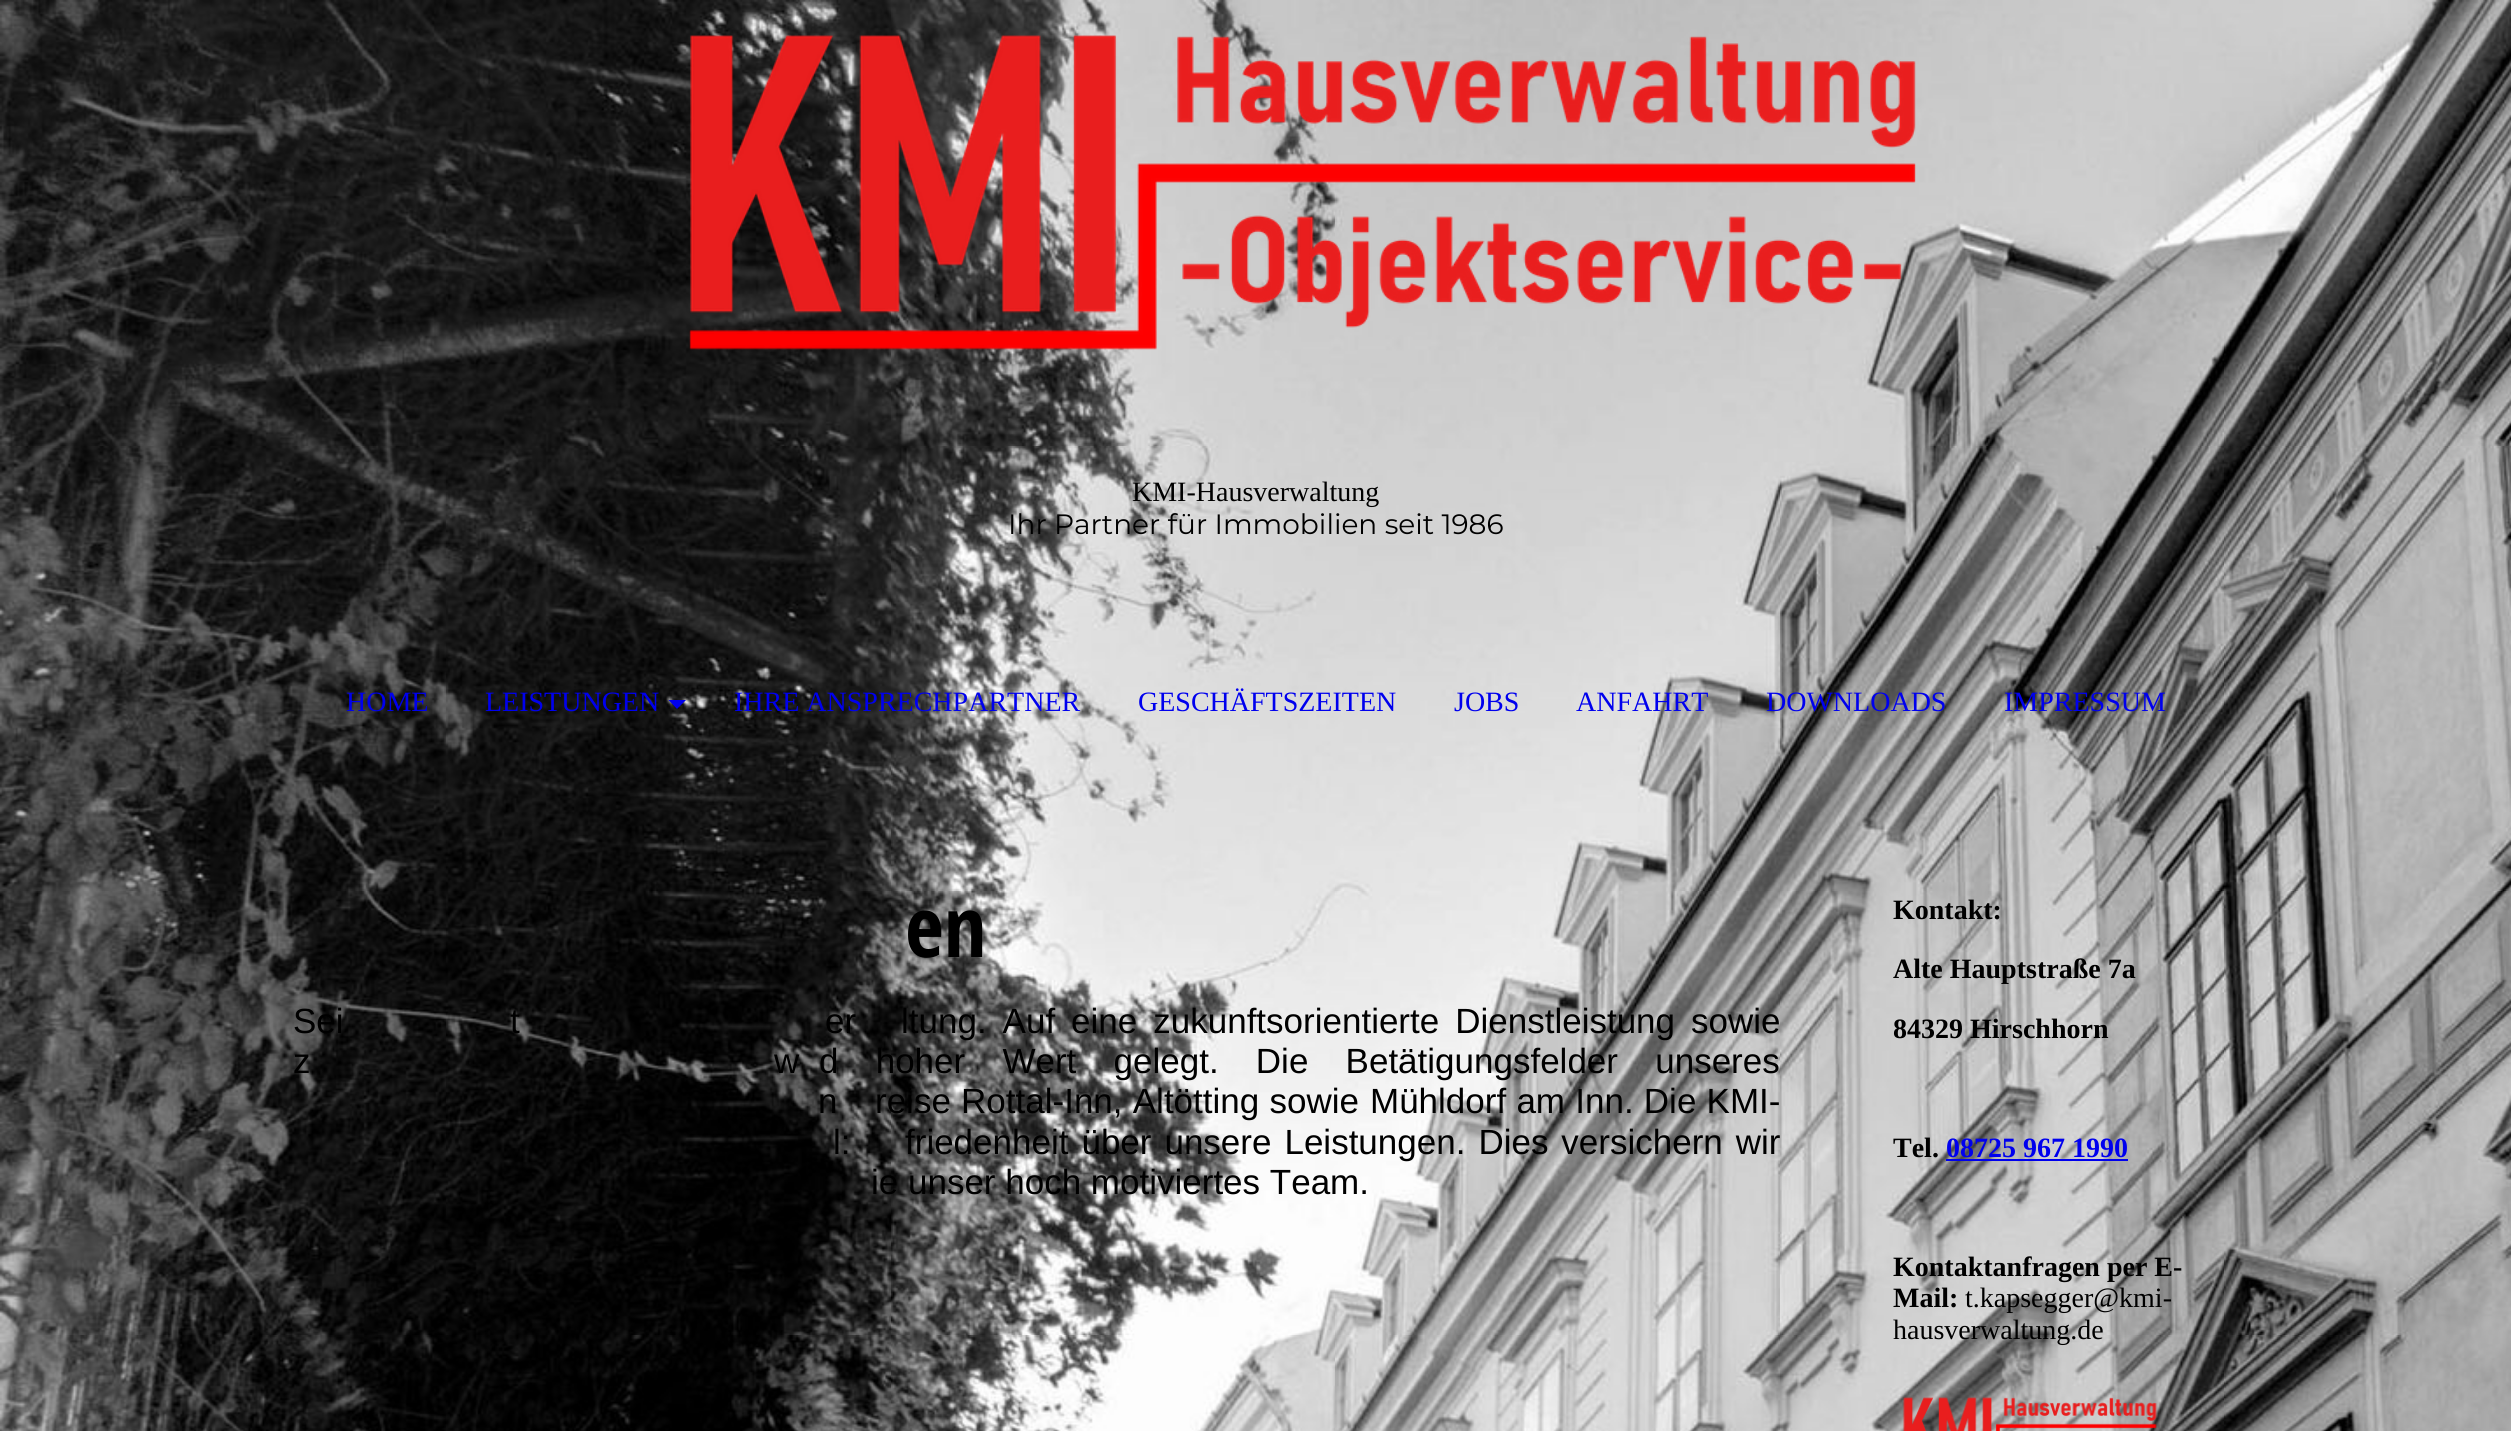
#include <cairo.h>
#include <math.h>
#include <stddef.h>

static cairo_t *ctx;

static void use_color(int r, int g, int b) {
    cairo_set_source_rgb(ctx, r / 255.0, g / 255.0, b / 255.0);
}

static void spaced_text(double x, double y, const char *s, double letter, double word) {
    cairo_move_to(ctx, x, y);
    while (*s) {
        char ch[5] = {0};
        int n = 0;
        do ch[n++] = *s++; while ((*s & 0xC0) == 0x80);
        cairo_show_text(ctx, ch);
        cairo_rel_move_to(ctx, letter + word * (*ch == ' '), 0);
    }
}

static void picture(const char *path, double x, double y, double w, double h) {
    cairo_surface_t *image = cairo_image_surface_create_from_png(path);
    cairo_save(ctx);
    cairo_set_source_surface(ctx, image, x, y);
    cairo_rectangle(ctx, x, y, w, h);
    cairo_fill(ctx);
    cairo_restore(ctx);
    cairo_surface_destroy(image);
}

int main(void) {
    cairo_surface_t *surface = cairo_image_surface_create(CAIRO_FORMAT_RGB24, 2511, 1431);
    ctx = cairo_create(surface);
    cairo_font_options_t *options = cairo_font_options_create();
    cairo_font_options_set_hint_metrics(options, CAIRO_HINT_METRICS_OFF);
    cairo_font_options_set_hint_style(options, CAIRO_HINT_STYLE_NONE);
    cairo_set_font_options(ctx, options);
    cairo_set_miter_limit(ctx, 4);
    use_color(255, 255, 255);
    cairo_paint(ctx);
    picture("img1.png", 0, 0, 2511, 1431);
    picture("img2.png", 689, 35, 1227, 315);
    cairo_select_font_face(ctx, "Liberation Serif", CAIRO_FONT_SLANT_NORMAL, CAIRO_FONT_WEIGHT_NORMAL);
    cairo_set_font_size(ctx, 28);
    use_color(0, 0, 0);
    cairo_move_to(ctx, 1132, 501);
    cairo_show_text(ctx, "KMI-Hausverwaltung");
    cairo_select_font_face(ctx, "Montserrat", CAIRO_FONT_SLANT_NORMAL, CAIRO_FONT_WEIGHT_NORMAL);
    cairo_move_to(ctx, 1008, 534);
    cairo_show_text(ctx, "Ihr Partner für Immobilien seit 1986");
    cairo_select_font_face(ctx, "Liberation Serif", CAIRO_FONT_SLANT_NORMAL, CAIRO_FONT_WEIGHT_NORMAL);
    use_color(0, 0, 238);
    cairo_move_to(ctx, 346, 711);
    cairo_show_text(ctx, "HOME");
    cairo_move_to(ctx, 485, 711);
    cairo_show_text(ctx, "LEISTUNGEN");
    cairo_new_path(ctx);
    cairo_move_to(ctx, 668.5, 700);
    cairo_line_to(ctx, 686, 700);
    cairo_line_to(ctx, 677, 709);
    cairo_close_path(ctx);
    cairo_fill(ctx);
    cairo_move_to(ctx, 734, 711);
    cairo_show_text(ctx, "IHRE ANSPRECHPARTNER");
    cairo_move_to(ctx, 1138, 711);
    cairo_show_text(ctx, "GESCHÄFTSZEITEN");
    cairo_move_to(ctx, 1454, 711);
    cairo_show_text(ctx, "JOBS");
    cairo_move_to(ctx, 1576, 711);
    cairo_show_text(ctx, "ANFAHRT");
    cairo_move_to(ctx, 1766, 711);
    cairo_show_text(ctx, "DOWNLOADS");
    cairo_move_to(ctx, 2004, 711);
    cairo_show_text(ctx, "IMPRESSUM");
    cairo_select_font_face(ctx, "Open Sans Condensed", CAIRO_FONT_SLANT_NORMAL, CAIRO_FONT_WEIGHT_BOLD);
    cairo_set_font_size(ctx, 84);
    use_color(0, 0, 0);
    cairo_move_to(ctx, 905, 957);
    cairo_show_text(ctx, "en");
    cairo_select_font_face(ctx, "Liberation Sans", CAIRO_FONT_SLANT_NORMAL, CAIRO_FONT_WEIGHT_NORMAL);
    cairo_set_font_size(ctx, 35);
    spaced_text(293, 1033, "Sei", 0, 6.25);
    spaced_text(510, 1033, "t", 0, 6.25);
    spaced_text(825, 1033, "er", 0, 6.25);
    spaced_text(901, 1033, "ltung. Auf eine zukunftsorientierte Dienstleistung sowie", 0, 6.25);
    spaced_text(293, 1073, "z", 0, 27.5);
    spaced_text(774, 1073, "w", 0, 27.5);
    spaced_text(819, 1073, "d hoher Wert gelegt. Die Betätigungsfelder unseres", 0, 27.5);
    spaced_text(818, 1113, "n", 0, 0.5);
    spaced_text(875, 1113, "reise Rottal-Inn, Altötting sowie", 0, 0.5);
    spaced_text(1370, 1113, "Mühldorf am Inn. Die KMI-", 0, 0.5);
    spaced_text(833, 1154, "l:", 0, 3.25);
    spaced_text(905, 1154, "friedenheit über unsere Leistungen. Dies versichern wir", 0, 3.25);
    cairo_move_to(ctx, 871, 1194);
    cairo_show_text(ctx, "ie unser hoch motiviertes Team.");
    cairo_select_font_face(ctx, "Liberation Serif", CAIRO_FONT_SLANT_NORMAL, CAIRO_FONT_WEIGHT_BOLD);
    cairo_set_font_size(ctx, 28);
    cairo_move_to(ctx, 1893, 919);
    cairo_show_text(ctx, "Kontakt:");
    cairo_move_to(ctx, 1893, 978);
    cairo_show_text(ctx, "Alte Hauptstraße 7a");
    cairo_move_to(ctx, 1893, 1038);
    cairo_show_text(ctx, "84329 Hirschhorn");
    cairo_move_to(ctx, 1893, 1157);
    cairo_show_text(ctx, "Tel.");
    use_color(0, 0, 238);
    cairo_move_to(ctx, 1946, 1157);
    cairo_show_text(ctx, "08725 967 1990");
    cairo_rectangle(ctx, 1946, 1159, 182, 2);
    cairo_fill(ctx);
    use_color(0, 0, 0);
    cairo_move_to(ctx, 1893, 1276);
    cairo_show_text(ctx, "Kontaktanfragen per E-");
    cairo_move_to(ctx, 1893, 1307);
    cairo_show_text(ctx, "Mail:");
    cairo_select_font_face(ctx, "Liberation Serif", CAIRO_FONT_SLANT_NORMAL, CAIRO_FONT_WEIGHT_NORMAL);
    cairo_move_to(ctx, 1965, 1307);
    cairo_show_text(ctx, "t.kapsegger@kmi-");
    cairo_move_to(ctx, 1893, 1339);
    cairo_show_text(ctx, "hausverwaltung.de");
    picture("img3.png", 1903, 1397, 254, 34);
    cairo_surface_write_to_png(surface, "result.png");
    cairo_font_options_destroy(options);
    cairo_destroy(ctx);
    cairo_surface_destroy(surface);
    return 0;
}
